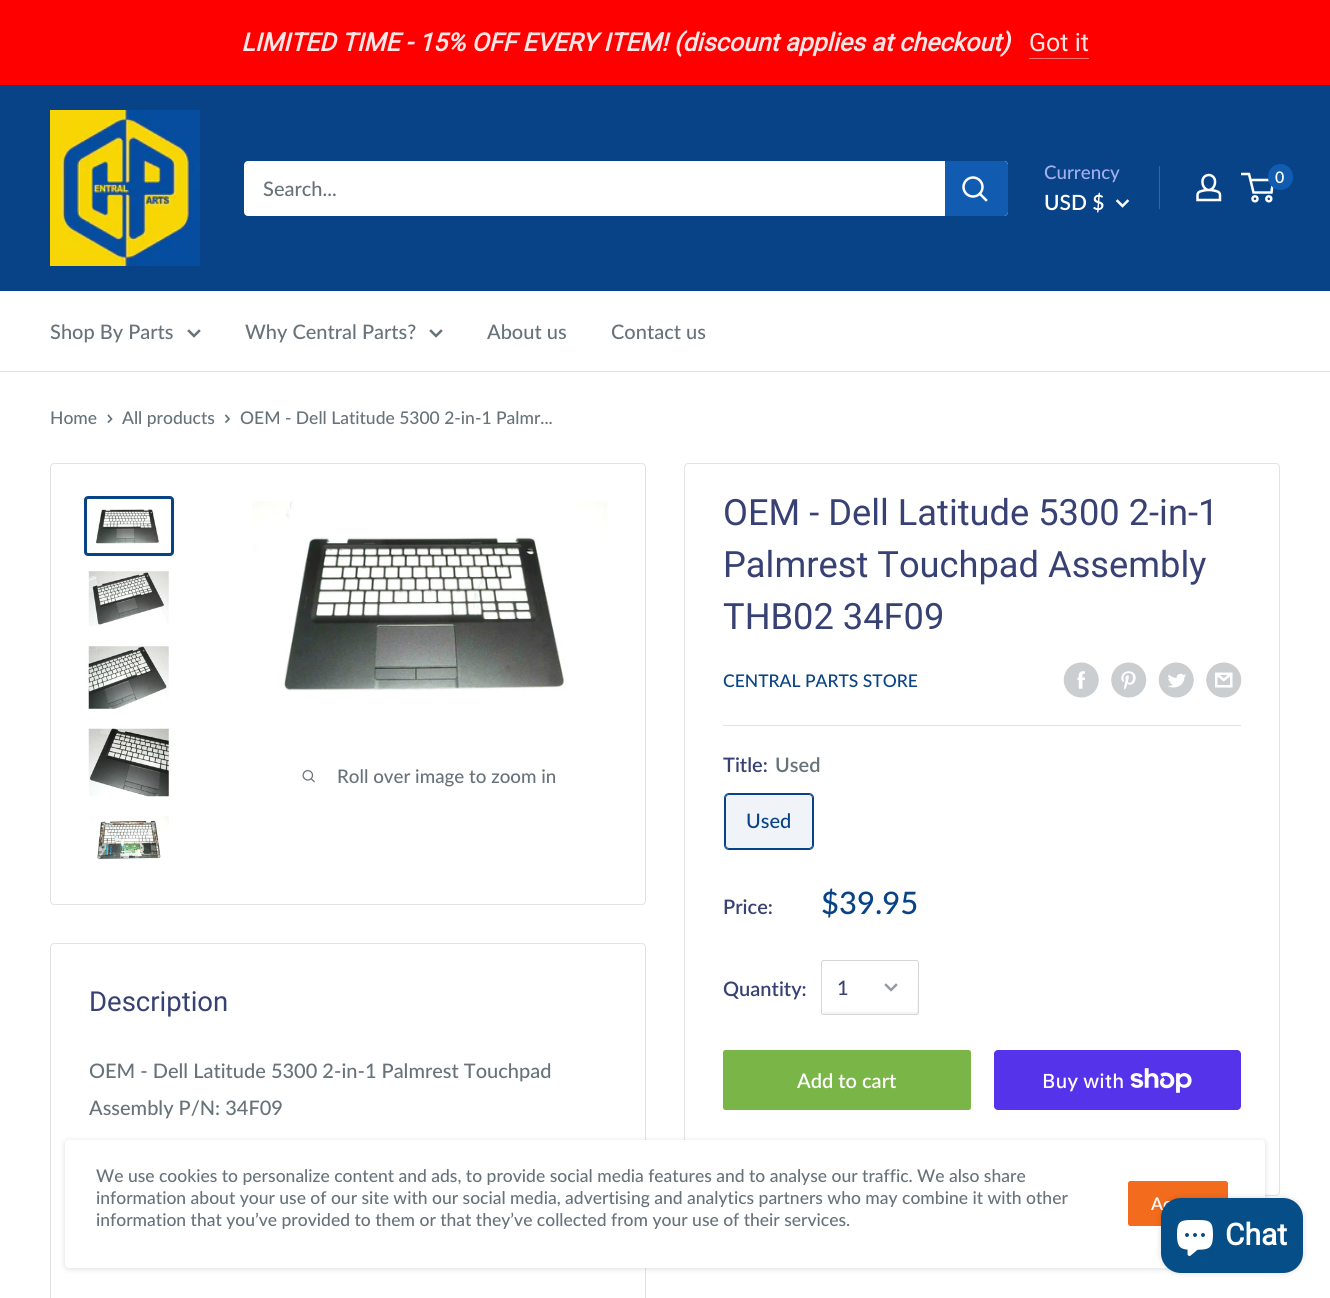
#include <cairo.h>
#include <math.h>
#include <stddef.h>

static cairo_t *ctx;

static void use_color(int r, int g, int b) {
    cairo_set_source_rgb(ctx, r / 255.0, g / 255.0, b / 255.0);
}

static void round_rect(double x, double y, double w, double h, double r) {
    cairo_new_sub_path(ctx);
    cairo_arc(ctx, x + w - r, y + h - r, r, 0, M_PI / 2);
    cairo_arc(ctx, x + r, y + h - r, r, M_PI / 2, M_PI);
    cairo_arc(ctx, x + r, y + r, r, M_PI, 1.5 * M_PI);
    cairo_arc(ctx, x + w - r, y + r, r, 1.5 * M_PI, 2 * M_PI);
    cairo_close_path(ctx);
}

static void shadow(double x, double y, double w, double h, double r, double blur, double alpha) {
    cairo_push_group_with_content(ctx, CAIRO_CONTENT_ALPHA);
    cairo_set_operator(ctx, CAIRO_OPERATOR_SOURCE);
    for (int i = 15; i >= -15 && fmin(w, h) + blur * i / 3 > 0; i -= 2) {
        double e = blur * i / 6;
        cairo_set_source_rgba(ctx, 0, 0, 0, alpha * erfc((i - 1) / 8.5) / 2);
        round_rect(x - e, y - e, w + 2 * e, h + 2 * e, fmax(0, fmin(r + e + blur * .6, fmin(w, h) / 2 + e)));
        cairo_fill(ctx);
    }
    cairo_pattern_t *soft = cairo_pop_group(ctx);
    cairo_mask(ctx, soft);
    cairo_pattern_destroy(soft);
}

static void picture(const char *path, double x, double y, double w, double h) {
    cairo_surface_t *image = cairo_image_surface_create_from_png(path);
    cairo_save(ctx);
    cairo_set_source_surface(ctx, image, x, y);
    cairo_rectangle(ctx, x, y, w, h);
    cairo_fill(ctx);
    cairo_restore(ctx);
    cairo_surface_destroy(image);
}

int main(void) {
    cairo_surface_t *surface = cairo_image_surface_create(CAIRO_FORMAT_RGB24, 1330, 1298);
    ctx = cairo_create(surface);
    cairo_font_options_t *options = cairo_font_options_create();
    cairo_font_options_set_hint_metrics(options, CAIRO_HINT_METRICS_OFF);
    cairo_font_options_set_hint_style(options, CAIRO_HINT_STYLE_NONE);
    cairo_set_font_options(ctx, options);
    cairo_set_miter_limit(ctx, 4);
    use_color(255, 255, 255);
    cairo_paint(ctx);
    use_color(255, 0, 0);
    cairo_rectangle(ctx, 0, 0, 1330, 85);
    cairo_fill(ctx);
    cairo_select_font_face(ctx, "Roboto", CAIRO_FONT_SLANT_ITALIC, CAIRO_FONT_WEIGHT_BOLD);
    cairo_set_font_size(ctx, 25);
    use_color(255, 230, 230);
    cairo_move_to(ctx, 241, 51);
    cairo_show_text(ctx, "LIMITED TIME - 15% OFF EVERY ITEM! (discount applies at checkout)");
    cairo_select_font_face(ctx, "Roboto", CAIRO_FONT_SLANT_NORMAL, CAIRO_FONT_WEIGHT_NORMAL);
    cairo_move_to(ctx, 1029, 51);
    cairo_show_text(ctx, "Got it");
    use_color(255, 115, 115);
    cairo_rectangle(ctx, 1029, 58, 60, 1);
    cairo_fill(ctx);
    use_color(8, 67, 135);
    cairo_rectangle(ctx, 0, 85, 1330, 206);
    cairo_fill(ctx);
    picture("img1.png", 50, 110, 150, 156);
    use_color(255, 255, 255);
    round_rect(244, 161, 764, 55, 4);
    cairo_fill(ctx);
    cairo_select_font_face(ctx, "Lato Medium", CAIRO_FONT_SLANT_NORMAL, CAIRO_FONT_WEIGHT_NORMAL);
    cairo_set_font_size(ctx, 20);
    use_color(103, 114, 121);
    cairo_move_to(ctx, 263, 196);
    cairo_show_text(ctx, "Search...");
    use_color(17, 91, 177);
    cairo_new_path(ctx);
    cairo_move_to(ctx, 945, 161);
    cairo_line_to(ctx, 1004, 161);
    cairo_curve_to(ctx, 1006, 161, 1008, 163, 1008, 165);
    cairo_line_to(ctx, 1008, 212);
    cairo_curve_to(ctx, 1008, 214, 1006, 216, 1004, 216);
    cairo_line_to(ctx, 945, 216);
    cairo_close_path(ctx);
    cairo_fill(ctx);
    cairo_new_path(ctx);
    cairo_move_to(ctx, 986, 200);
    cairo_line_to(ctx, 980, 194);
    use_color(255, 255, 255);
    cairo_set_line_width(ctx, 2.5);
    cairo_set_line_cap(ctx, CAIRO_LINE_CAP_SQUARE);
    cairo_stroke(ctx);
    cairo_arc(ctx, 973, 187, 9.5, 0, 2 * M_PI);
    cairo_set_line_cap(ctx, CAIRO_LINE_CAP_BUTT);
    cairo_stroke(ctx);
    cairo_set_font_size(ctx, 18.75);
    use_color(163, 175, 239);
    cairo_move_to(ctx, 1044, 179);
    cairo_show_text(ctx, "Currency");
    cairo_select_font_face(ctx, "Lato SemiBold", CAIRO_FONT_SLANT_NORMAL, CAIRO_FONT_WEIGHT_NORMAL);
    cairo_set_font_size(ctx, 21);
    use_color(255, 255, 255);
    cairo_move_to(ctx, 1044, 210);
    cairo_show_text(ctx, "USD $");
    cairo_new_path(ctx);
    cairo_move_to(ctx, 1127.5, 201);
    cairo_line_to(ctx, 1122.5, 206);
    cairo_line_to(ctx, 1117.5, 201);
    cairo_set_line_cap(ctx, CAIRO_LINE_CAP_SQUARE);
    cairo_stroke(ctx);
    use_color(55, 99, 166);
    cairo_rectangle(ctx, 1159, 166, 1, 43);
    cairo_fill(ctx);
    picture("img2.png", 1196, 173, 26, 29);
    cairo_arc(ctx, 1255, 198.8, 2.5, 0, 2 * M_PI);
    use_color(255, 255, 255);
    cairo_set_line_cap(ctx, CAIRO_LINE_CAP_BUTT);
    cairo_stroke(ctx);
    cairo_arc(ctx, 1268.8, 198.8, 2.5, 0, 2 * M_PI);
    cairo_stroke(ctx);
    cairo_new_path(ctx);
    cairo_move_to(ctx, 1250.5, 180);
    cairo_line_to(ctx, 1273, 180);
    cairo_line_to(ctx, 1271.5, 192.5);
    cairo_line_to(ctx, 1253.5, 192.5);
    cairo_line_to(ctx, 1249, 174);
    cairo_line_to(ctx, 1241, 174);
    cairo_stroke(ctx);
    use_color(17, 91, 177);
    round_rect(1268, 164, 25, 26, 12.5);
    cairo_fill(ctx);
    cairo_set_font_size(ctx, 16);
    use_color(255, 255, 255);
    cairo_move_to(ctx, 1275, 183);
    cairo_show_text(ctx, "0");
    use_color(225, 227, 228);
    cairo_rectangle(ctx, 0, 371, 1330, 1);
    cairo_fill(ctx);
    cairo_select_font_face(ctx, "Lato Medium", CAIRO_FONT_SLANT_NORMAL, CAIRO_FONT_WEIGHT_NORMAL);
    cairo_set_font_size(ctx, 20);
    use_color(103, 114, 121);
    cairo_move_to(ctx, 50, 339);
    cairo_show_text(ctx, "Shop By Parts");
    cairo_new_path(ctx);
    cairo_move_to(ctx, 199, 331);
    cairo_line_to(ctx, 194, 336);
    cairo_line_to(ctx, 189, 331);
    cairo_set_line_cap(ctx, CAIRO_LINE_CAP_SQUARE);
    cairo_stroke(ctx);
    cairo_move_to(ctx, 245, 339);
    cairo_show_text(ctx, "Why Central Parts?");
    cairo_new_path(ctx);
    cairo_move_to(ctx, 441, 331);
    cairo_line_to(ctx, 436, 336);
    cairo_line_to(ctx, 431, 331);
    cairo_stroke(ctx);
    cairo_move_to(ctx, 487, 339);
    cairo_show_text(ctx, "About us");
    cairo_move_to(ctx, 611, 339);
    cairo_show_text(ctx, "Contact us");
    cairo_set_font_size(ctx, 17.5);
    cairo_move_to(ctx, 50, 424);
    cairo_show_text(ctx, "Home");
    cairo_new_path(ctx);
    cairo_move_to(ctx, 108.5, 415.5);
    cairo_line_to(ctx, 111.5, 419);
    cairo_line_to(ctx, 108.5, 422);
    cairo_set_line_width(ctx, 1.7);
    cairo_stroke(ctx);
    cairo_move_to(ctx, 122, 424);
    cairo_show_text(ctx, "All products");
    cairo_new_path(ctx);
    cairo_move_to(ctx, 226, 415.5);
    cairo_line_to(ctx, 229, 419);
    cairo_line_to(ctx, 226, 422);
    cairo_stroke(ctx);
    cairo_move_to(ctx, 240, 424);
    cairo_show_text(ctx, "OEM - Dell Latitude 5300 2-in-1 Palmr...");
    round_rect(50.5, 463.5, 595, 441, 3.5);
    use_color(225, 227, 228);
    cairo_set_line_width(ctx, 1);
    cairo_set_line_cap(ctx, CAIRO_LINE_CAP_BUTT);
    cairo_stroke(ctx);
    round_rect(85.5, 497.5, 87, 57, 2.5);
    use_color(8, 67, 135);
    cairo_set_line_width(ctx, 3);
    cairo_stroke(ctx);
    picture("img3.png", 89, 501, 80, 44);
    picture("img4.png", 88, 571, 81, 55);
    picture("img5.png", 88, 646, 81, 63);
    picture("img6.png", 88, 728, 81, 69);
    picture("img7.png", 89, 816, 80, 44);
    picture("img8.png", 252, 501, 356, 190);
    picture("img9.png", 302, 770, 13, 13);
    cairo_set_font_size(ctx, 18.75);
    use_color(103, 114, 121);
    cairo_move_to(ctx, 337, 783);
    cairo_show_text(ctx, "Roll over image to zoom in");
    round_rect(684.5, 463.5, 595, 732, 3.5);
    use_color(225, 227, 228);
    cairo_set_line_width(ctx, 1);
    cairo_stroke(ctx);
    cairo_select_font_face(ctx, "Roboto", CAIRO_FONT_SLANT_NORMAL, CAIRO_FONT_WEIGHT_NORMAL);
    cairo_set_font_size(ctx, 36.25);
    use_color(56, 65, 116);
    cairo_move_to(ctx, 723, 525);
    cairo_show_text(ctx, "OEM - Dell Latitude 5300 2-in-1");
    cairo_move_to(ctx, 723, 577);
    cairo_show_text(ctx, "Palmrest Touchpad Assembly");
    cairo_move_to(ctx, 723, 629);
    cairo_show_text(ctx, "THB02 34F09");
    cairo_select_font_face(ctx, "Lato Medium", CAIRO_FONT_SLANT_NORMAL, CAIRO_FONT_WEIGHT_NORMAL);
    cairo_set_font_size(ctx, 17.5);
    use_color(8, 67, 135);
    cairo_move_to(ctx, 723, 687);
    cairo_show_text(ctx, "CENTRAL PARTS STORE");
    picture("img10.png", 1063, 662, 36, 36);
    picture("img11.png", 1111, 662, 36, 36);
    picture("img12.png", 1158, 662, 36, 36);
    picture("img13.png", 1206, 662, 36, 36);
    use_color(225, 227, 228);
    cairo_rectangle(ctx, 723, 725, 518, 1);
    cairo_fill(ctx);
    cairo_select_font_face(ctx, "Lato SemiBold", CAIRO_FONT_SLANT_NORMAL, CAIRO_FONT_WEIGHT_NORMAL);
    cairo_set_font_size(ctx, 20);
    use_color(56, 65, 116);
    cairo_move_to(ctx, 723, 772);
    cairo_show_text(ctx, "Title:");
    use_color(103, 114, 121);
    cairo_move_to(ctx, 775, 772);
    cairo_show_text(ctx, "Used");
    round_rect(724.5, 793.5, 89, 56, 4.5);
    use_color(8, 67, 135);
    cairo_stroke(ctx);
    cairo_set_source_rgba(ctx, 0.031, 0.263, 0.529, 0.06);
    cairo_rectangle(ctx, 725, 794, 88, 55);
    cairo_fill(ctx);
    round_rect(725.5, 794.5, 87, 54, 3.5);
    use_color(8, 67, 135);
    cairo_stroke(ctx);
    cairo_select_font_face(ctx, "Lato Medium", CAIRO_FONT_SLANT_NORMAL, CAIRO_FONT_WEIGHT_NORMAL);
    cairo_move_to(ctx, 746, 828);
    cairo_show_text(ctx, "Used");
    cairo_select_font_face(ctx, "Lato SemiBold", CAIRO_FONT_SLANT_NORMAL, CAIRO_FONT_WEIGHT_NORMAL);
    use_color(56, 65, 116);
    cairo_move_to(ctx, 723, 914);
    cairo_show_text(ctx, "Price:");
    cairo_select_font_face(ctx, "Lato Medium", CAIRO_FONT_SLANT_NORMAL, CAIRO_FONT_WEIGHT_NORMAL);
    cairo_set_font_size(ctx, 31);
    use_color(8, 67, 135);
    cairo_move_to(ctx, 821, 914);
    cairo_show_text(ctx, "$39.95");
    cairo_select_font_face(ctx, "Lato SemiBold", CAIRO_FONT_SLANT_NORMAL, CAIRO_FONT_WEIGHT_NORMAL);
    cairo_set_font_size(ctx, 20);
    use_color(56, 65, 116);
    cairo_move_to(ctx, 723, 996);
    cairo_show_text(ctx, "Quantity:");
    use_color(242, 243, 243);
    cairo_new_path(ctx);
    cairo_move_to(ctx, 823, 1012);
    cairo_line_to(ctx, 823, 1013);
    cairo_curve_to(ctx, 823, 1014, 823, 1014, 824, 1014);
    cairo_line_to(ctx, 917, 1014);
    cairo_curve_to(ctx, 918, 1014, 918, 1014, 918, 1013);
    cairo_line_to(ctx, 918, 978);
    cairo_line_to(ctx, 917, 1012);
    cairo_close_path(ctx);
    cairo_fill(ctx);
    round_rect(821.5, 960.5, 97, 54, 2);
    use_color(212, 214, 216);
    cairo_stroke(ctx);
    cairo_select_font_face(ctx, "Lato Medium", CAIRO_FONT_SLANT_NORMAL, CAIRO_FONT_WEIGHT_NORMAL);
    use_color(56, 65, 116);
    cairo_move_to(ctx, 837, 995);
    cairo_show_text(ctx, "1");
    cairo_new_path(ctx);
    cairo_move_to(ctx, 896, 985);
    cairo_line_to(ctx, 891, 990);
    cairo_line_to(ctx, 886, 985);
    use_color(149, 156, 161);
    cairo_set_line_width(ctx, 2.5);
    cairo_set_line_cap(ctx, CAIRO_LINE_CAP_SQUARE);
    cairo_stroke(ctx);
    use_color(122, 181, 71);
    round_rect(723, 1050, 248, 60, 2.5);
    cairo_fill(ctx);
    cairo_select_font_face(ctx, "Lato SemiBold", CAIRO_FONT_SLANT_NORMAL, CAIRO_FONT_WEIGHT_NORMAL);
    use_color(255, 255, 255);
    cairo_move_to(ctx, 797, 1088);
    cairo_show_text(ctx, "Add to cart");
    use_color(84, 51, 235);
    round_rect(994, 1050, 247, 60, 4);
    cairo_fill(ctx);
    cairo_select_font_face(ctx, "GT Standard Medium", CAIRO_FONT_SLANT_NORMAL, CAIRO_FONT_WEIGHT_NORMAL);
    use_color(255, 255, 255);
    cairo_move_to(ctx, 1042, 1088);
    cairo_show_text(ctx, "Buy with");
    picture("img14.png", 1130, 1068, 62, 25);
    round_rect(50.5, 943.5, 595, 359, 3.5);
    use_color(225, 227, 228);
    cairo_set_line_width(ctx, 1);
    cairo_set_line_cap(ctx, CAIRO_LINE_CAP_BUTT);
    cairo_stroke(ctx);
    cairo_select_font_face(ctx, "Roboto", CAIRO_FONT_SLANT_NORMAL, CAIRO_FONT_WEIGHT_NORMAL);
    cairo_set_font_size(ctx, 27.5);
    use_color(56, 65, 116);
    cairo_move_to(ctx, 89, 1011);
    cairo_show_text(ctx, "Description");
    cairo_select_font_face(ctx, "Lato Medium", CAIRO_FONT_SLANT_NORMAL, CAIRO_FONT_WEIGHT_NORMAL);
    cairo_set_font_size(ctx, 20);
    use_color(103, 114, 121);
    cairo_move_to(ctx, 89, 1078);
    cairo_show_text(ctx, "OEM - Dell Latitude 5300 2-in-1 Palmrest Touchpad");
    cairo_move_to(ctx, 89, 1115);
    cairo_show_text(ctx, "Assembly P/N: 34F09");
    use_color(0, 0, 0);
    shadow(64, 1140, 1202, 130, 5, 2.5, 0.1);
    use_color(255, 255, 255);
    round_rect(65, 1140, 1200, 128, 4);
    cairo_fill(ctx);
    cairo_set_font_size(ctx, 17.5);
    use_color(103, 114, 121);
    cairo_move_to(ctx, 96, 1182);
    cairo_show_text(ctx, "We use cookies to personalize content and ads, to provide social media features and to analyse our traffic. We also share");
    cairo_move_to(ctx, 96, 1204);
    cairo_show_text(ctx, "information about your use of our site with our social media, advertising and analytics partners who may combine it with other");
    cairo_move_to(ctx, 96, 1226);
    cairo_show_text(ctx, "information that you’ve provided to them or that they’ve collected from your use of their services.");
    use_color(243, 107, 28);
    round_rect(1128, 1181, 100, 45, 2.5);
    cairo_fill(ctx);
    cairo_select_font_face(ctx, "Lato SemiBold", CAIRO_FONT_SLANT_NORMAL, CAIRO_FONT_WEIGHT_NORMAL);
    use_color(255, 255, 255);
    cairo_move_to(ctx, 1151, 1210);
    cairo_show_text(ctx, "Ac");
    use_color(0, 0, 0);
    shadow(1161, 1198, 142, 75, 20, 3, 0.15);
    use_color(5, 78, 136);
    round_rect(1161, 1198, 142, 75, 20);
    cairo_fill(ctx);
    picture("img15.png", 1177, 1220, 36, 36);
    cairo_select_font_face(ctx, "Roboto", CAIRO_FONT_SLANT_NORMAL, CAIRO_FONT_WEIGHT_BOLD);
    cairo_set_font_size(ctx, 30);
    use_color(255, 255, 255);
    cairo_move_to(ctx, 1225, 1245);
    cairo_show_text(ctx, "Chat");
    cairo_surface_write_to_png(surface, "result.png");
    cairo_font_options_destroy(options);
    cairo_destroy(ctx);
    cairo_surface_destroy(surface);
    return 0;
}
